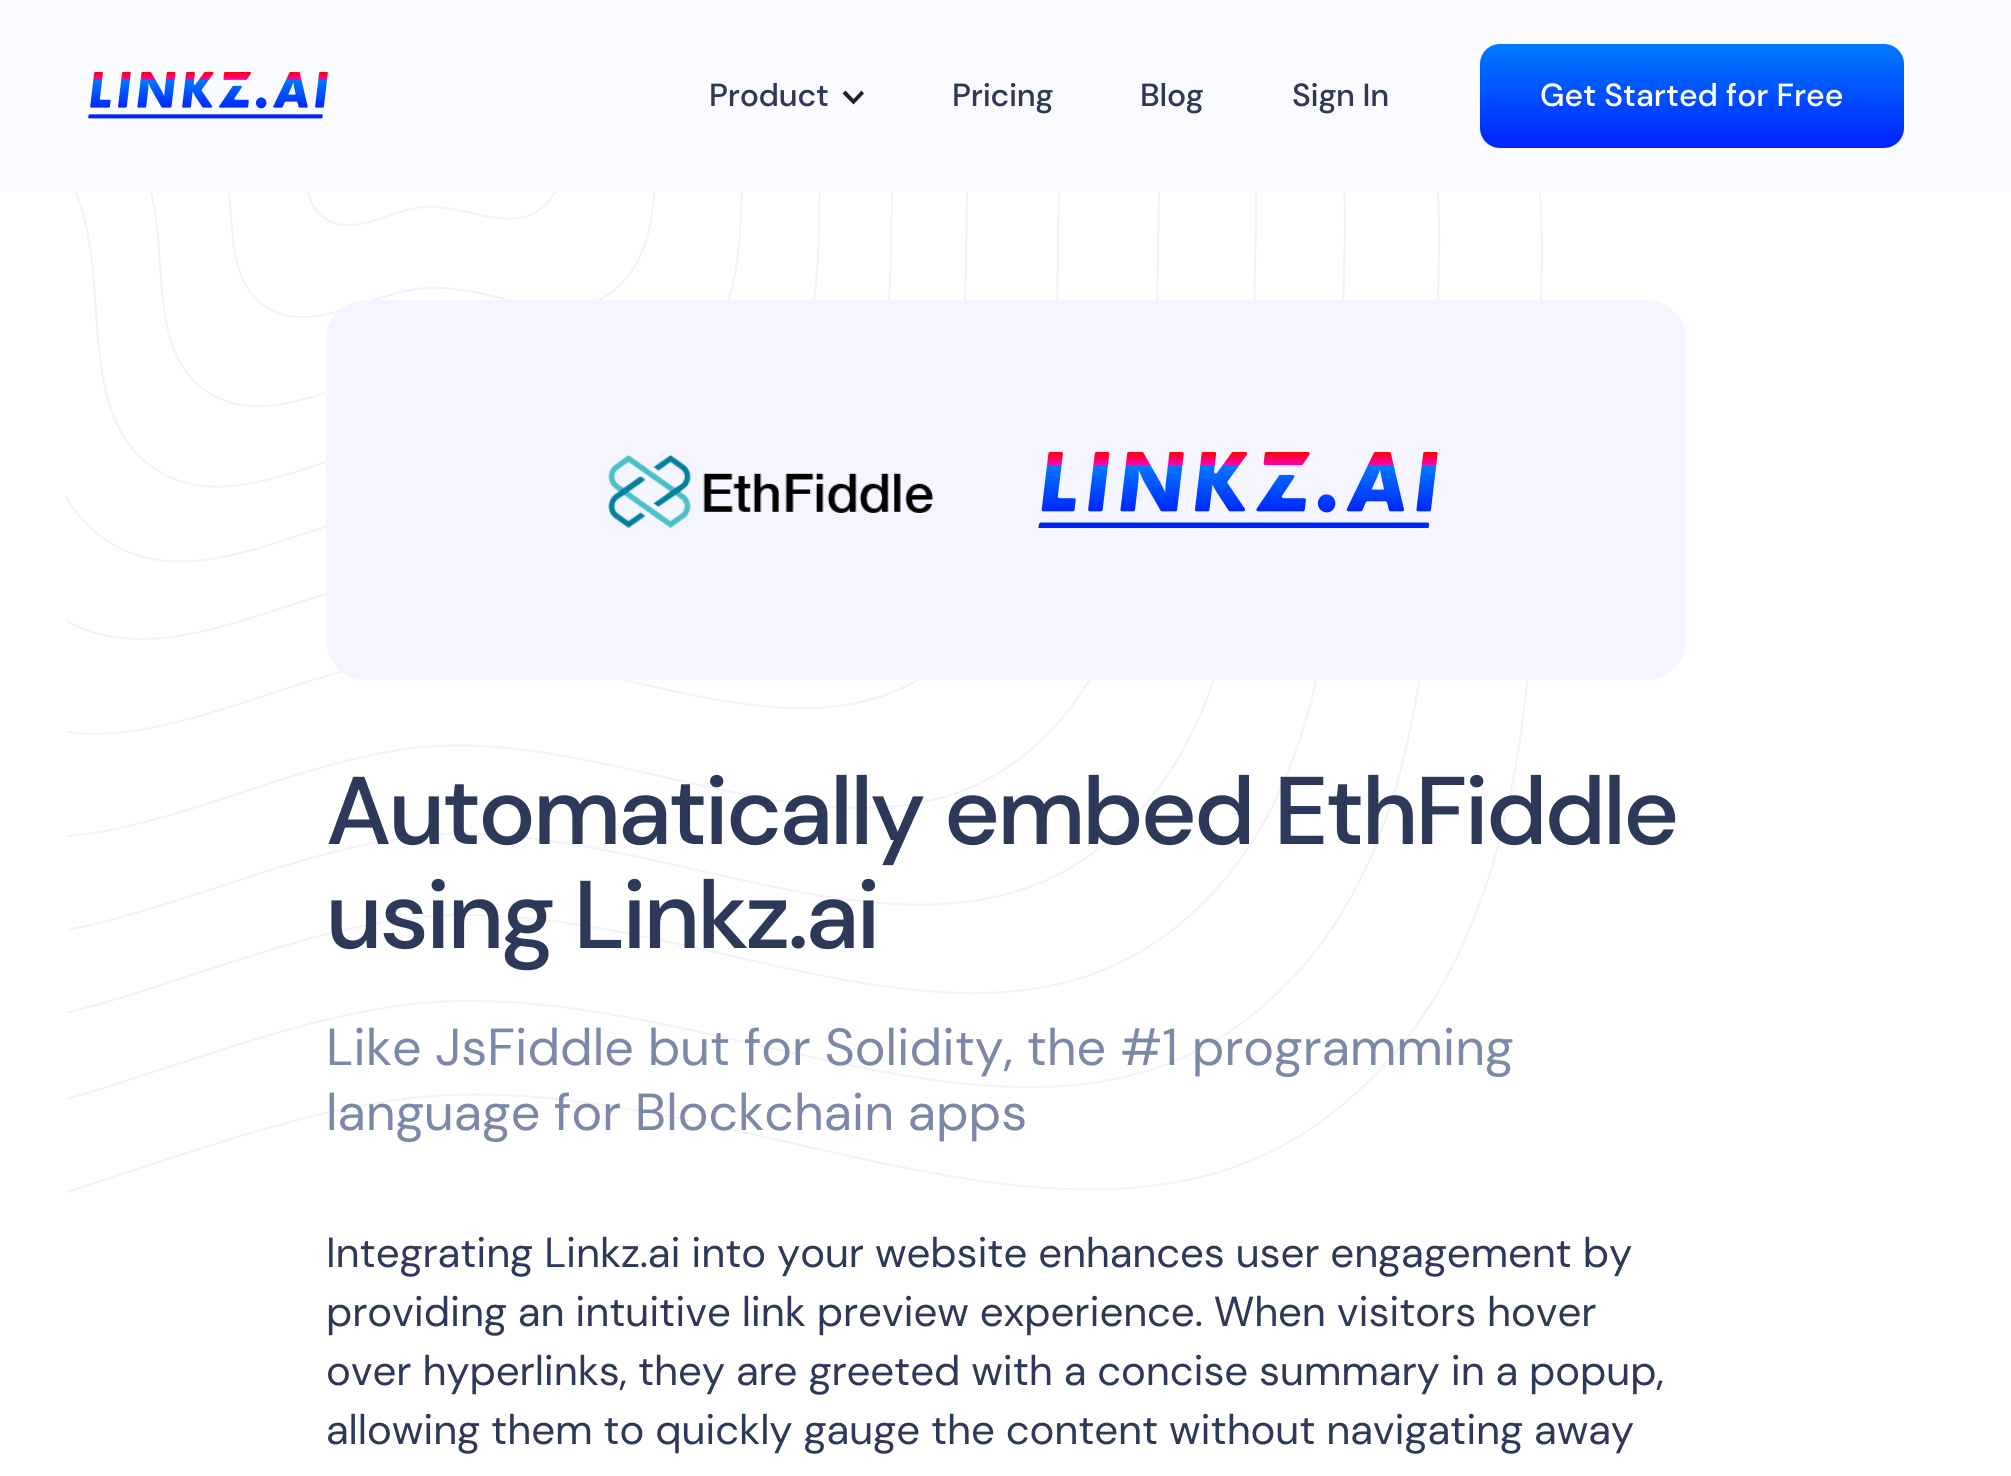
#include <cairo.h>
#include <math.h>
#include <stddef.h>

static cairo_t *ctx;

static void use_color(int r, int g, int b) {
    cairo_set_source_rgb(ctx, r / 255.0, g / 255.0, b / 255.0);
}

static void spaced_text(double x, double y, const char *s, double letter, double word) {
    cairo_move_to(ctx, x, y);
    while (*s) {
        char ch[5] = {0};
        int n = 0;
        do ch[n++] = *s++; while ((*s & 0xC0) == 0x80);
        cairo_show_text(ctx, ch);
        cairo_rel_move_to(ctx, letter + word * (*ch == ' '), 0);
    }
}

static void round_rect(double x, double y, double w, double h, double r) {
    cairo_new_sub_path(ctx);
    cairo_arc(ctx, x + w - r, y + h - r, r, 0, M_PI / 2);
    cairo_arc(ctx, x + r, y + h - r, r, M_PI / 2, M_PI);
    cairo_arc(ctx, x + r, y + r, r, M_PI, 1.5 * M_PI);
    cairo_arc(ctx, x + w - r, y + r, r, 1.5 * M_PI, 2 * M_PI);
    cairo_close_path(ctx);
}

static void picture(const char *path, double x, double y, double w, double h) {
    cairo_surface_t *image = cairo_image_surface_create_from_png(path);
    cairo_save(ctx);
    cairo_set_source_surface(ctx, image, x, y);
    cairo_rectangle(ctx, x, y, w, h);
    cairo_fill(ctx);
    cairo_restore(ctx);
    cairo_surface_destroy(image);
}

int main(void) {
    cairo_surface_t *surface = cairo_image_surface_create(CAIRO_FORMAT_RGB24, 2011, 1476);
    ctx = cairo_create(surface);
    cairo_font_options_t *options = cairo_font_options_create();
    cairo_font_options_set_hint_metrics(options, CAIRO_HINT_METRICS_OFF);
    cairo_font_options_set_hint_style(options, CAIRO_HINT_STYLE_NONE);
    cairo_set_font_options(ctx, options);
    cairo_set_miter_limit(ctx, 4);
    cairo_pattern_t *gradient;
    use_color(255, 255, 255);
    cairo_paint(ctx);
    picture("img2.png", 66, 0, 1477, 1193);
    cairo_set_source_rgba(ctx, 0.973, 0.98, 1, 0.8);
    cairo_rectangle(ctx, 0, 0, 2011, 192);
    cairo_fill(ctx);
    picture("img1.png", 88, 72, 240, 47);
    cairo_select_font_face(ctx, "DM Sans Medium", CAIRO_FONT_SLANT_NORMAL, CAIRO_FONT_WEIGHT_NORMAL);
    cairo_set_font_size(ctx, 32);
    use_color(45, 57, 88);
    spaced_text(709, 106, "Product", -0.25, 0);
    use_color(34, 34, 34);
    cairo_new_path(ctx);
    cairo_move_to(ctx, 861.5, 90.5);
    cairo_line_to(ctx, 853.5, 99);
    cairo_line_to(ctx, 845.5, 90.5);
    cairo_line_to(ctx, 842.5, 93.5);
    cairo_line_to(ctx, 853.5, 104.5);
    cairo_line_to(ctx, 864, 93.5);
    cairo_close_path(ctx);
    cairo_fill(ctx);
    use_color(45, 57, 88);
    spaced_text(952, 106, "Pricing", -0.25, 0);
    spaced_text(1140, 106, "Blog", -0.25, 0);
    spaced_text(1292, 106, "Sign In", -0.25, 0);
    gradient = cairo_pattern_create_linear(1692, 44, 1692, 148);
    cairo_pattern_add_color_stop_rgba(gradient, 0, 0, 0.475, 1, 1);
    cairo_pattern_add_color_stop_rgba(gradient, 1, 0, 0.141, 1, 1);
    cairo_set_source(ctx, gradient);
    cairo_pattern_destroy(gradient);
    round_rect(1480, 44, 424, 104, 20);
    cairo_fill(ctx);
    use_color(255, 255, 255);
    cairo_move_to(ctx, 1540, 106);
    cairo_show_text(ctx, "Get Started for Free");
    use_color(245, 245, 255);
    round_rect(326, 300, 1360, 380, 40);
    cairo_fill(ctx);
    picture("img3.png", 608, 454, 326, 75);
    picture("img4.png", 1038, 452, 400, 76);
    cairo_set_font_size(ctx, 96);
    use_color(45, 57, 88);
    spaced_text(326, 844, "Automatically embed EthFiddle", -2.9, 0);
    spaced_text(326, 948, "using Linkz.ai", -2.9, 0);
    cairo_select_font_face(ctx, "DM Sans", CAIRO_FONT_SLANT_NORMAL, CAIRO_FONT_WEIGHT_NORMAL);
    cairo_set_font_size(ctx, 52);
    use_color(123, 136, 168);
    cairo_move_to(ctx, 326, 1065);
    cairo_show_text(ctx, "Like JsFiddle but for Solidity, the #1 programming");
    cairo_move_to(ctx, 326, 1130);
    cairo_show_text(ctx, "language for Blockchain apps");
    cairo_set_font_size(ctx, 42);
    use_color(45, 57, 88);
    spaced_text(326, 1267, "Integrating Linkz.ai into your website enhances user engagement by", -0.13, 0);
    spaced_text(326, 1326, "providing an intuitive link preview experience. When visitors hover", -0.13, 0);
    spaced_text(326, 1385, "over hyperlinks, they are greeted with a concise summary in a popup,", -0.13, 0);
    spaced_text(326, 1444, "allowing them to quickly gauge the content without navigating away", -0.13, 0);
    cairo_surface_write_to_png(surface, "result.png");
    cairo_font_options_destroy(options);
    cairo_destroy(ctx);
    cairo_surface_destroy(surface);
    return 0;
}
